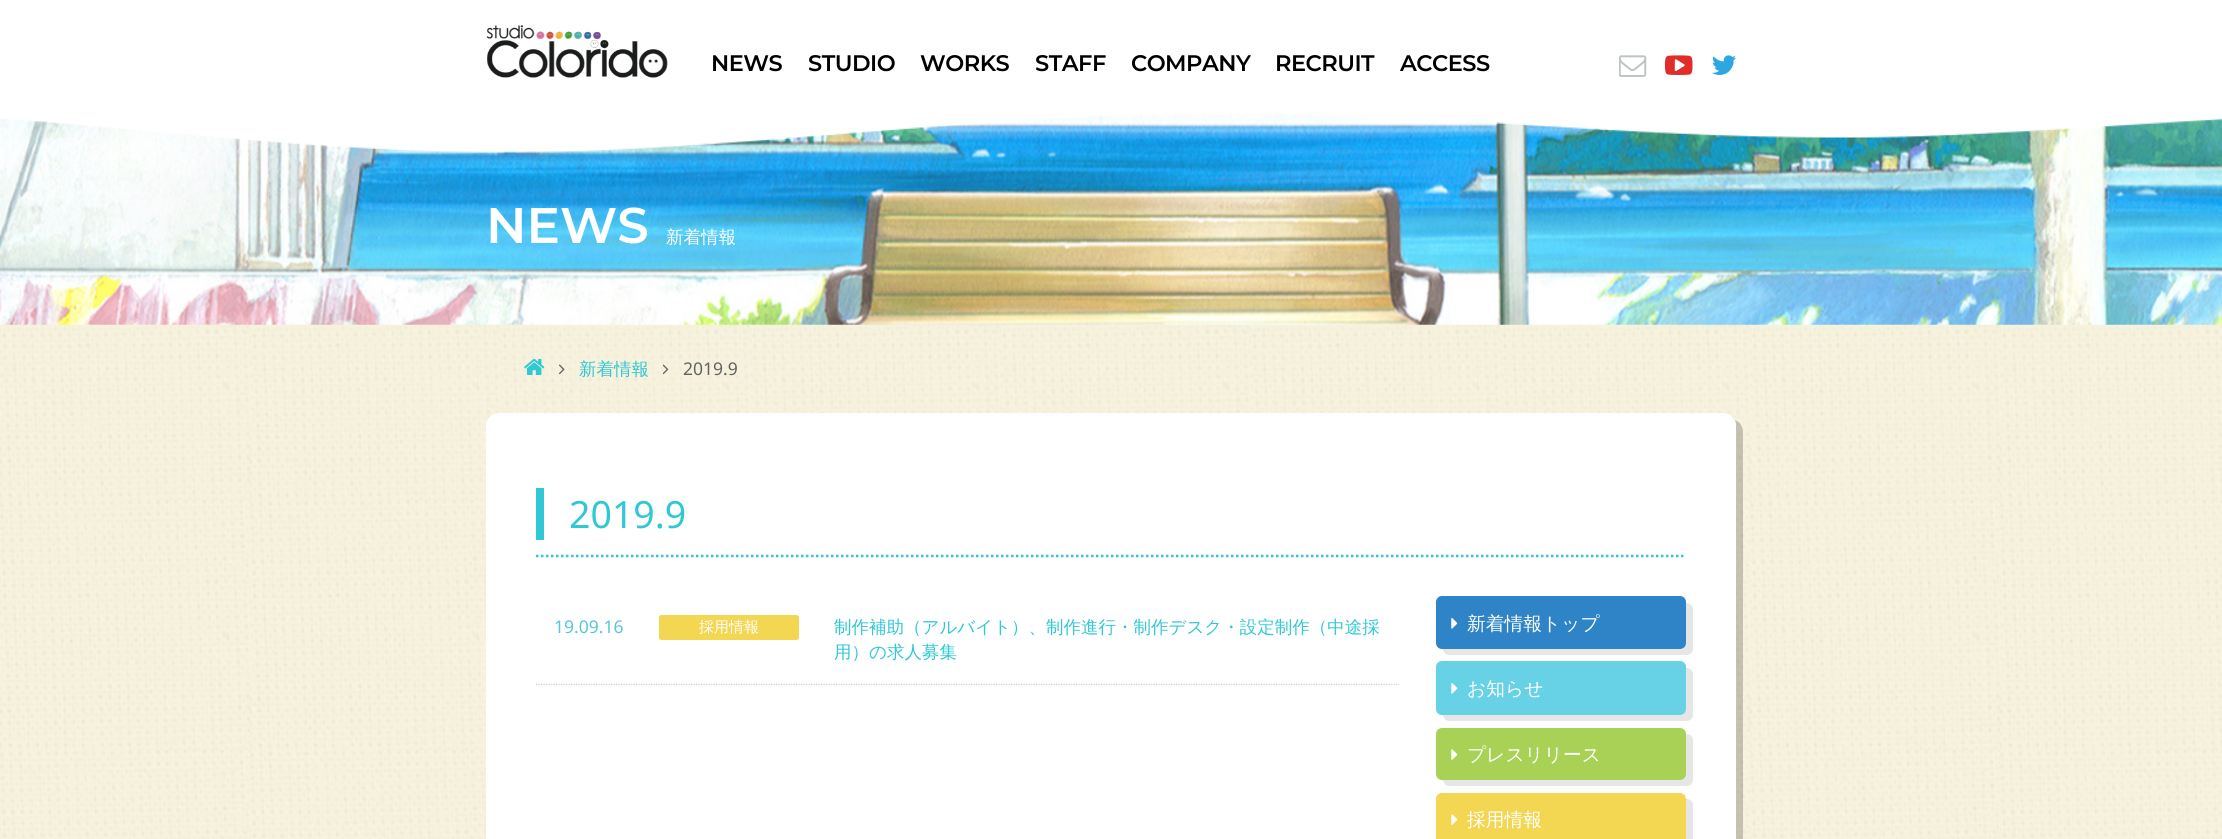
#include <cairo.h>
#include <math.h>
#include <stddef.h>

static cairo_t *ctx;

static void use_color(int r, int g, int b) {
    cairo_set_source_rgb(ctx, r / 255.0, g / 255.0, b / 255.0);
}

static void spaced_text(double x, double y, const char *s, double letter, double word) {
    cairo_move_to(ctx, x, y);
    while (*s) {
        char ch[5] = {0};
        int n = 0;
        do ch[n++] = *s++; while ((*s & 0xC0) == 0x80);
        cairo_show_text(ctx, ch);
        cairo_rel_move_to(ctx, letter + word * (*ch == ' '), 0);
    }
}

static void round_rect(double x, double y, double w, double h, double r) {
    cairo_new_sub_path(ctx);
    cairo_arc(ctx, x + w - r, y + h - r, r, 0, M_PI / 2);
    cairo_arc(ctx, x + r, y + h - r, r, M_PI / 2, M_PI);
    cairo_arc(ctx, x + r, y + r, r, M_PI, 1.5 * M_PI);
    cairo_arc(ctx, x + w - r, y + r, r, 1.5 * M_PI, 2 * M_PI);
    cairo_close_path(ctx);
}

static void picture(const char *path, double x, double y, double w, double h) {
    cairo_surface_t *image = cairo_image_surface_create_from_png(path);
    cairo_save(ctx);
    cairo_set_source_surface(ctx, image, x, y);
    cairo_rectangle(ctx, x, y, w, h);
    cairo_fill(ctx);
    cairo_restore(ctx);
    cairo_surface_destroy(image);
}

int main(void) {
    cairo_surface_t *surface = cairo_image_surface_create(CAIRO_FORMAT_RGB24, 2222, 839);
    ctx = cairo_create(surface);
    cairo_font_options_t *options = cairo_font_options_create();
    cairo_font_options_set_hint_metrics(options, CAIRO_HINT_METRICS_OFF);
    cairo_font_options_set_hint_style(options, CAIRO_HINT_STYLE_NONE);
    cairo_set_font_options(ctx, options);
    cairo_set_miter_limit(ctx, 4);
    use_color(255, 255, 255);
    cairo_paint(ctx);
    picture("img1.png", 0, 324, 2222, 515);
    picture("img7.png", 0, 112, 2222, 213);
    picture("img2.png", 0, 103, 2222, 50);
    picture("img3.png", 486, 25, 182, 53);
    cairo_select_font_face(ctx, "Montserrat SemiBold", CAIRO_FONT_SLANT_NORMAL, CAIRO_FONT_WEIGHT_NORMAL);
    cairo_set_font_size(ctx, 22.5);
    use_color(0, 0, 0);
    spaced_text(711, 71, "NEWS", -0.5, 0);
    spaced_text(808, 71, "STUDIO", -0.5, 0);
    spaced_text(920, 71, "WORKS", -0.5, 0);
    spaced_text(1035, 71, "STAFF", -0.5, 0);
    spaced_text(1131, 71, "COMPANY", -0.5, 0);
    spaced_text(1275, 71, "RECRUIT", -0.5, 0);
    spaced_text(1400, 71, "ACCESS", -0.5, 0);
    picture("img4.png", 1619, 55, 28, 22);
    picture("img5.png", 1665, 55, 28, 20);
    picture("img6.png", 1712, 55, 24, 20);
    cairo_set_font_size(ctx, 50);
    use_color(255, 255, 255);
    cairo_move_to(ctx, 486, 243);
    cairo_show_text(ctx, "NEWS");
    cairo_select_font_face(ctx, "WenQuanYi Zen Hei Medium", CAIRO_FONT_SLANT_NORMAL, CAIRO_FONT_WEIGHT_NORMAL);
    cairo_set_font_size(ctx, 17.5);
    cairo_move_to(ctx, 666, 243);
    cairo_show_text(ctx, "新着情報");
    picture("img8.png", 524, 358, 21, 17);
    picture("img9.png", 559, 364, 6, 11);
    use_color(47, 200, 212);
    cairo_move_to(ctx, 579, 375);
    cairo_show_text(ctx, "新着情報");
    picture("img10.png", 663, 364, 6, 11);
    cairo_select_font_face(ctx, "Noto Sans", CAIRO_FONT_SLANT_NORMAL, CAIRO_FONT_WEIGHT_NORMAL);
    use_color(98, 98, 98);
    cairo_move_to(ctx, 683, 375);
    cairo_show_text(ctx, "2019.9");
    cairo_set_source_rgba(ctx, 0, 0, 0, 0.2);
    cairo_new_path(ctx);
    cairo_move_to(ctx, 494, 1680);
    cairo_curve_to(ctx, 496, 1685, 501, 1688, 506, 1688);
    cairo_line_to(ctx, 1730, 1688);
    cairo_curve_to(ctx, 1737, 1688, 1743, 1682, 1743, 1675);
    cairo_line_to(ctx, 1743, 432);
    cairo_curve_to(ctx, 1743, 427, 1740, 422, 1735, 420);
    cairo_line_to(ctx, 1736, 425);
    cairo_line_to(ctx, 1736, 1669);
    cairo_curve_to(ctx, 1736, 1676, 1731, 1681, 1724, 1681);
    cairo_line_to(ctx, 499, 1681);
    cairo_close_path(ctx);
    cairo_fill(ctx);
    use_color(255, 255, 255);
    round_rect(486, 413, 1250, 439, 13);
    cairo_fill(ctx);
    cairo_new_path(ctx);
    cairo_move_to(ctx, 536, 556);
    cairo_line_to(ctx, 1686, 556);
    use_color(47, 200, 212);
    cairo_set_line_width(ctx, 2.5);
    cairo_set_dash(ctx, (double[]){2.5, 2.5}, 2, 0);
    cairo_stroke(ctx);
    cairo_rectangle(ctx, 536, 488, 8, 52);
    cairo_fill(ctx);
    cairo_set_font_size(ctx, 37.5);
    cairo_move_to(ctx, 569, 528);
    cairo_show_text(ctx, "2019.9");
    cairo_new_path(ctx);
    cairo_move_to(ctx, 536, 684.5);
    cairo_line_to(ctx, 1399, 684.5);
    use_color(204, 204, 204);
    cairo_set_line_width(ctx, 1.2);
    cairo_set_dash(ctx, (double[]){1.25, 1.25}, 2, 0);
    cairo_stroke(ctx);
    cairo_set_font_size(ctx, 17.5);
    use_color(87, 198, 218);
    cairo_move_to(ctx, 554, 633);
    cairo_show_text(ctx, "19.09.16");
    use_color(243, 214, 81);
    round_rect(659, 615, 140, 25, 2.5);
    cairo_fill(ctx);
    cairo_select_font_face(ctx, "WenQuanYi Zen Hei Medium", CAIRO_FONT_SLANT_NORMAL, CAIRO_FONT_WEIGHT_NORMAL);
    cairo_set_font_size(ctx, 15);
    use_color(255, 255, 255);
    cairo_move_to(ctx, 699, 632);
    cairo_show_text(ctx, "採用情報");
    cairo_set_font_size(ctx, 17.5);
    use_color(47, 200, 212);
    cairo_move_to(ctx, 834, 633);
    cairo_show_text(ctx, "制作補助（アルバイト）、制作進⾏・制作デスク・設定制作（中途採");
    cairo_move_to(ctx, 834, 658);
    cairo_show_text(ctx, "⽤）の求人募集");
    use_color(230, 230, 230);
    cairo_new_path(ctx);
    cairo_move_to(ctx, 1443, 649);
    cairo_curve_to(ctx, 1443, 652, 1446, 655, 1449, 655);
    cairo_line_to(ctx, 1687, 655);
    cairo_curve_to(ctx, 1690, 655, 1693, 652, 1693, 649);
    cairo_line_to(ctx, 1693, 609);
    cairo_curve_to(ctx, 1693, 606, 1690, 603, 1687, 603);
    cairo_line_to(ctx, 1686, 603);
    cairo_line_to(ctx, 1686, 642);
    cairo_curve_to(ctx, 1686, 646, 1683, 649, 1680, 649);
    cairo_close_path(ctx);
    cairo_fill(ctx);
    use_color(46, 132, 198);
    round_rect(1436, 596, 250, 53, 6);
    cairo_fill(ctx);
    picture("img11.png", 1451, 618, 7, 11);
    cairo_set_font_size(ctx, 18.75);
    use_color(255, 255, 255);
    cairo_move_to(ctx, 1467, 630);
    cairo_show_text(ctx, "新着情報トップ");
    use_color(230, 230, 230);
    cairo_new_path(ctx);
    cairo_move_to(ctx, 1443, 715);
    cairo_curve_to(ctx, 1443, 718, 1446, 721, 1449, 721);
    cairo_line_to(ctx, 1687, 721);
    cairo_curve_to(ctx, 1690, 721, 1693, 718, 1693, 715);
    cairo_line_to(ctx, 1693, 674);
    cairo_curve_to(ctx, 1693, 671, 1690, 668, 1687, 668);
    cairo_line_to(ctx, 1686, 668);
    cairo_line_to(ctx, 1686, 709);
    cairo_curve_to(ctx, 1686, 712, 1683, 715, 1680, 715);
    cairo_close_path(ctx);
    cairo_fill(ctx);
    use_color(103, 209, 229);
    round_rect(1436, 661, 250, 54, 6);
    cairo_fill(ctx);
    picture("img12.png", 1451, 683, 7, 11);
    use_color(255, 255, 255);
    cairo_move_to(ctx, 1467, 695);
    cairo_show_text(ctx, "お知らせ");
    use_color(230, 230, 230);
    cairo_new_path(ctx);
    cairo_move_to(ctx, 1443, 780);
    cairo_curve_to(ctx, 1443, 783, 1446, 786, 1449, 786);
    cairo_line_to(ctx, 1687, 786);
    cairo_curve_to(ctx, 1690, 786, 1693, 783, 1693, 780);
    cairo_line_to(ctx, 1693, 740);
    cairo_curve_to(ctx, 1693, 737, 1690, 734, 1687, 734);
    cairo_line_to(ctx, 1686, 734);
    cairo_line_to(ctx, 1686, 774);
    cairo_curve_to(ctx, 1686, 777, 1683, 780, 1680, 780);
    cairo_close_path(ctx);
    cairo_fill(ctx);
    use_color(169, 209, 86);
    round_rect(1436, 728, 250, 52, 6);
    cairo_fill(ctx);
    picture("img13.png", 1451, 749, 7, 11);
    use_color(255, 255, 255);
    cairo_move_to(ctx, 1467, 761);
    cairo_show_text(ctx, "プレスリリース");
    use_color(230, 230, 230);
    cairo_new_path(ctx);
    cairo_move_to(ctx, 1443, 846);
    cairo_line_to(ctx, 1443, 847);
    cairo_curve_to(ctx, 1443, 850, 1446, 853, 1449, 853);
    cairo_line_to(ctx, 1687, 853);
    cairo_curve_to(ctx, 1690, 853, 1693, 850, 1693, 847);
    cairo_line_to(ctx, 1693, 805);
    cairo_curve_to(ctx, 1693, 802, 1690, 799, 1687, 799);
    cairo_line_to(ctx, 1686, 799);
    cairo_line_to(ctx, 1686, 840);
    cairo_curve_to(ctx, 1686, 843, 1683, 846, 1680, 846);
    cairo_close_path(ctx);
    cairo_fill(ctx);
    use_color(243, 214, 81);
    round_rect(1436, 793, 250, 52, 6);
    cairo_fill(ctx);
    picture("img14.png", 1451, 814, 7, 11);
    use_color(255, 255, 255);
    cairo_move_to(ctx, 1467, 826);
    cairo_show_text(ctx, "採用情報");
    cairo_surface_write_to_png(surface, "result.png");
    cairo_font_options_destroy(options);
    cairo_destroy(ctx);
    cairo_surface_destroy(surface);
    return 0;
}
